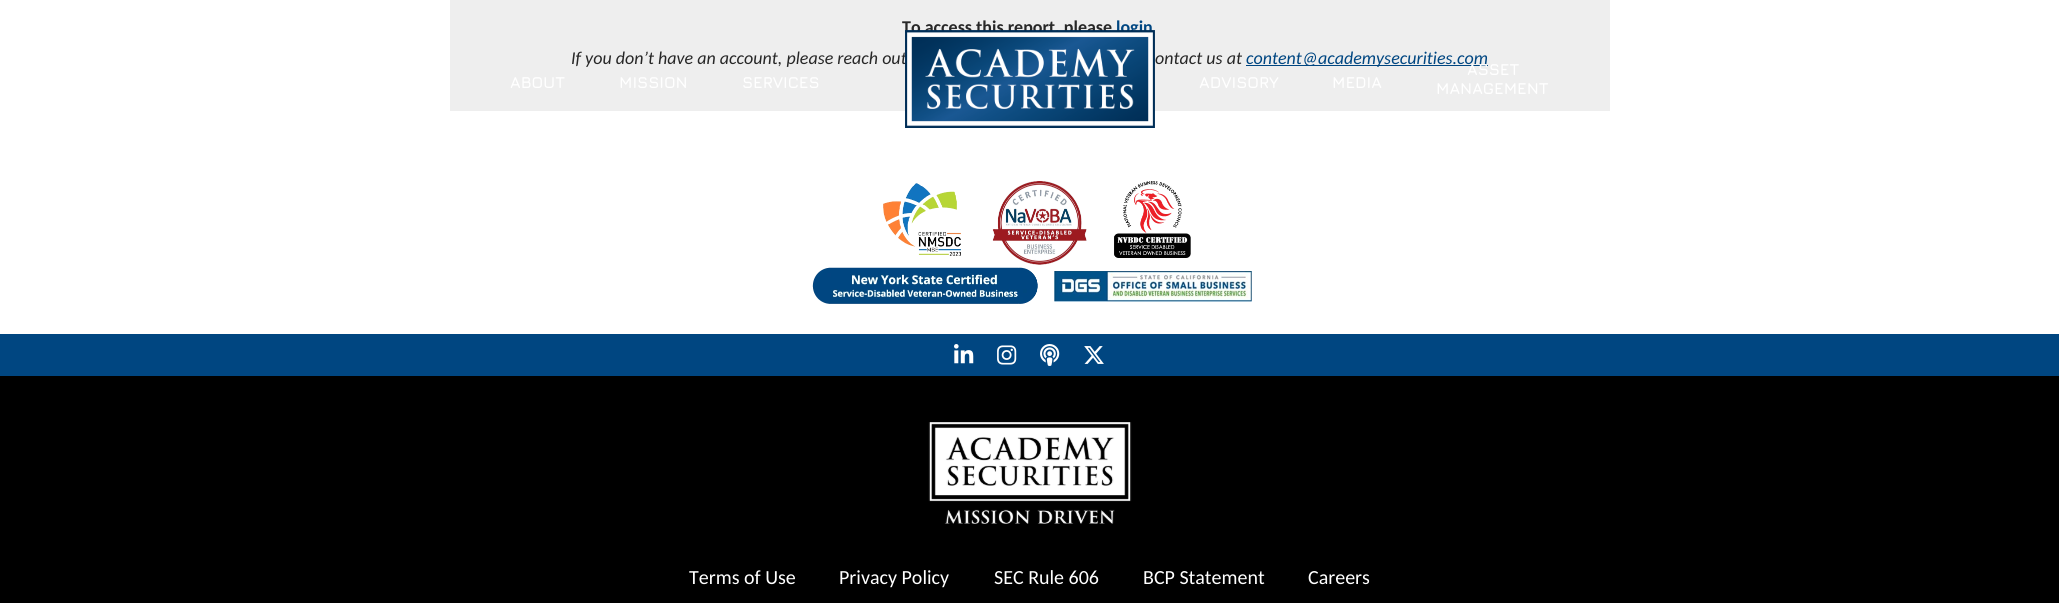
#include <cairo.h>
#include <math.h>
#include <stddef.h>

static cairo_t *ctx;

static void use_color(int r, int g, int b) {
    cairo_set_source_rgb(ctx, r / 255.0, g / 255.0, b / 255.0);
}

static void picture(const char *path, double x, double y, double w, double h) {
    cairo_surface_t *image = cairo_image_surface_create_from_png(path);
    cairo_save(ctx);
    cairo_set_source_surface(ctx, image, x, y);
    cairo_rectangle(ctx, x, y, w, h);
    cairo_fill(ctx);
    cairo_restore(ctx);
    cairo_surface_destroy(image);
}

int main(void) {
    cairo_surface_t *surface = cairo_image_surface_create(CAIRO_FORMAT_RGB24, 2059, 603);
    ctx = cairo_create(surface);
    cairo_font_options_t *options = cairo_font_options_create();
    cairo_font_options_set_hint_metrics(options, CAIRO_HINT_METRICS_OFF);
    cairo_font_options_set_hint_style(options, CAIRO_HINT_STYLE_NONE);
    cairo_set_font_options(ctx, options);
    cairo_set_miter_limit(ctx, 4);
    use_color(255, 255, 255);
    cairo_paint(ctx);
    use_color(238, 238, 238);
    cairo_rectangle(ctx, 450, 0, 1160, 111);
    cairo_fill(ctx);
    cairo_select_font_face(ctx, "Carlito", CAIRO_FONT_SLANT_NORMAL, CAIRO_FONT_WEIGHT_BOLD);
    cairo_set_font_size(ctx, 18);
    use_color(39, 39, 39);
    cairo_move_to(ctx, 902, 33);
    cairo_show_text(ctx, "To access this report, please");
    use_color(0, 70, 129);
    cairo_move_to(ctx, 1116, 33);
    cairo_show_text(ctx, "login");
    cairo_select_font_face(ctx, "Carlito", CAIRO_FONT_SLANT_ITALIC, CAIRO_FONT_WEIGHT_NORMAL);
    use_color(39, 39, 39);
    cairo_move_to(ctx, 571, 64);
    cairo_show_text(ctx, "If you don’t have an account, please reach out");
    cairo_move_to(ctx, 1155, 64);
    cairo_show_text(ctx, "ontact us at");
    use_color(0, 70, 129);
    cairo_rectangle(ctx, 1246, 65, 242, 1);
    cairo_fill(ctx);
    cairo_move_to(ctx, 1246, 64);
    cairo_show_text(ctx, "content@academysecurities.com");
    picture("img1.png", 905, 30, 250, 98);
    cairo_select_font_face(ctx, "Jura", CAIRO_FONT_SLANT_NORMAL, CAIRO_FONT_WEIGHT_BOLD);
    cairo_set_font_size(ctx, 16);
    use_color(255, 255, 255);
    cairo_move_to(ctx, 510, 88);
    cairo_show_text(ctx, "ABOUT");
    cairo_move_to(ctx, 619, 88);
    cairo_show_text(ctx, "MISSION");
    cairo_move_to(ctx, 742, 88);
    cairo_show_text(ctx, "SERVICES");
    cairo_move_to(ctx, 1199, 88);
    cairo_show_text(ctx, "ADVISORY");
    cairo_move_to(ctx, 1332, 88);
    cairo_show_text(ctx, "MEDIA");
    cairo_move_to(ctx, 1467, 75);
    cairo_show_text(ctx, "ASSET");
    cairo_move_to(ctx, 1436, 94);
    cairo_show_text(ctx, "MANAGEMENT");
    picture("img2.png", 812, 181, 440, 123);
    use_color(0, 70, 129);
    cairo_rectangle(ctx, 0, 334, 2059, 42);
    cairo_fill(ctx);
    picture("img3.png", 954, 344, 20, 20);
    picture("img4.png", 997, 345, 20, 20);
    picture("img5.png", 1040, 344, 20, 22);
    picture("img6.png", 1084, 346, 20, 18);
    use_color(0, 0, 0);
    cairo_rectangle(ctx, 0, 376, 2059, 227);
    cairo_fill(ctx);
    picture("img7.png", 928, 422, 204, 102);
    cairo_select_font_face(ctx, "Carlito", CAIRO_FONT_SLANT_NORMAL, CAIRO_FONT_WEIGHT_NORMAL);
    cairo_set_font_size(ctx, 20);
    use_color(255, 255, 255);
    cairo_move_to(ctx, 689, 584);
    cairo_show_text(ctx, "Terms of Use");
    cairo_move_to(ctx, 839, 584);
    cairo_show_text(ctx, "Privacy Policy");
    cairo_move_to(ctx, 994, 584);
    cairo_show_text(ctx, "SEC Rule 606");
    cairo_move_to(ctx, 1143, 584);
    cairo_show_text(ctx, "BCP Statement");
    cairo_move_to(ctx, 1308, 584);
    cairo_show_text(ctx, "Careers");
    cairo_surface_write_to_png(surface, "result.png");
    cairo_font_options_destroy(options);
    cairo_destroy(ctx);
    cairo_surface_destroy(surface);
    return 0;
}
